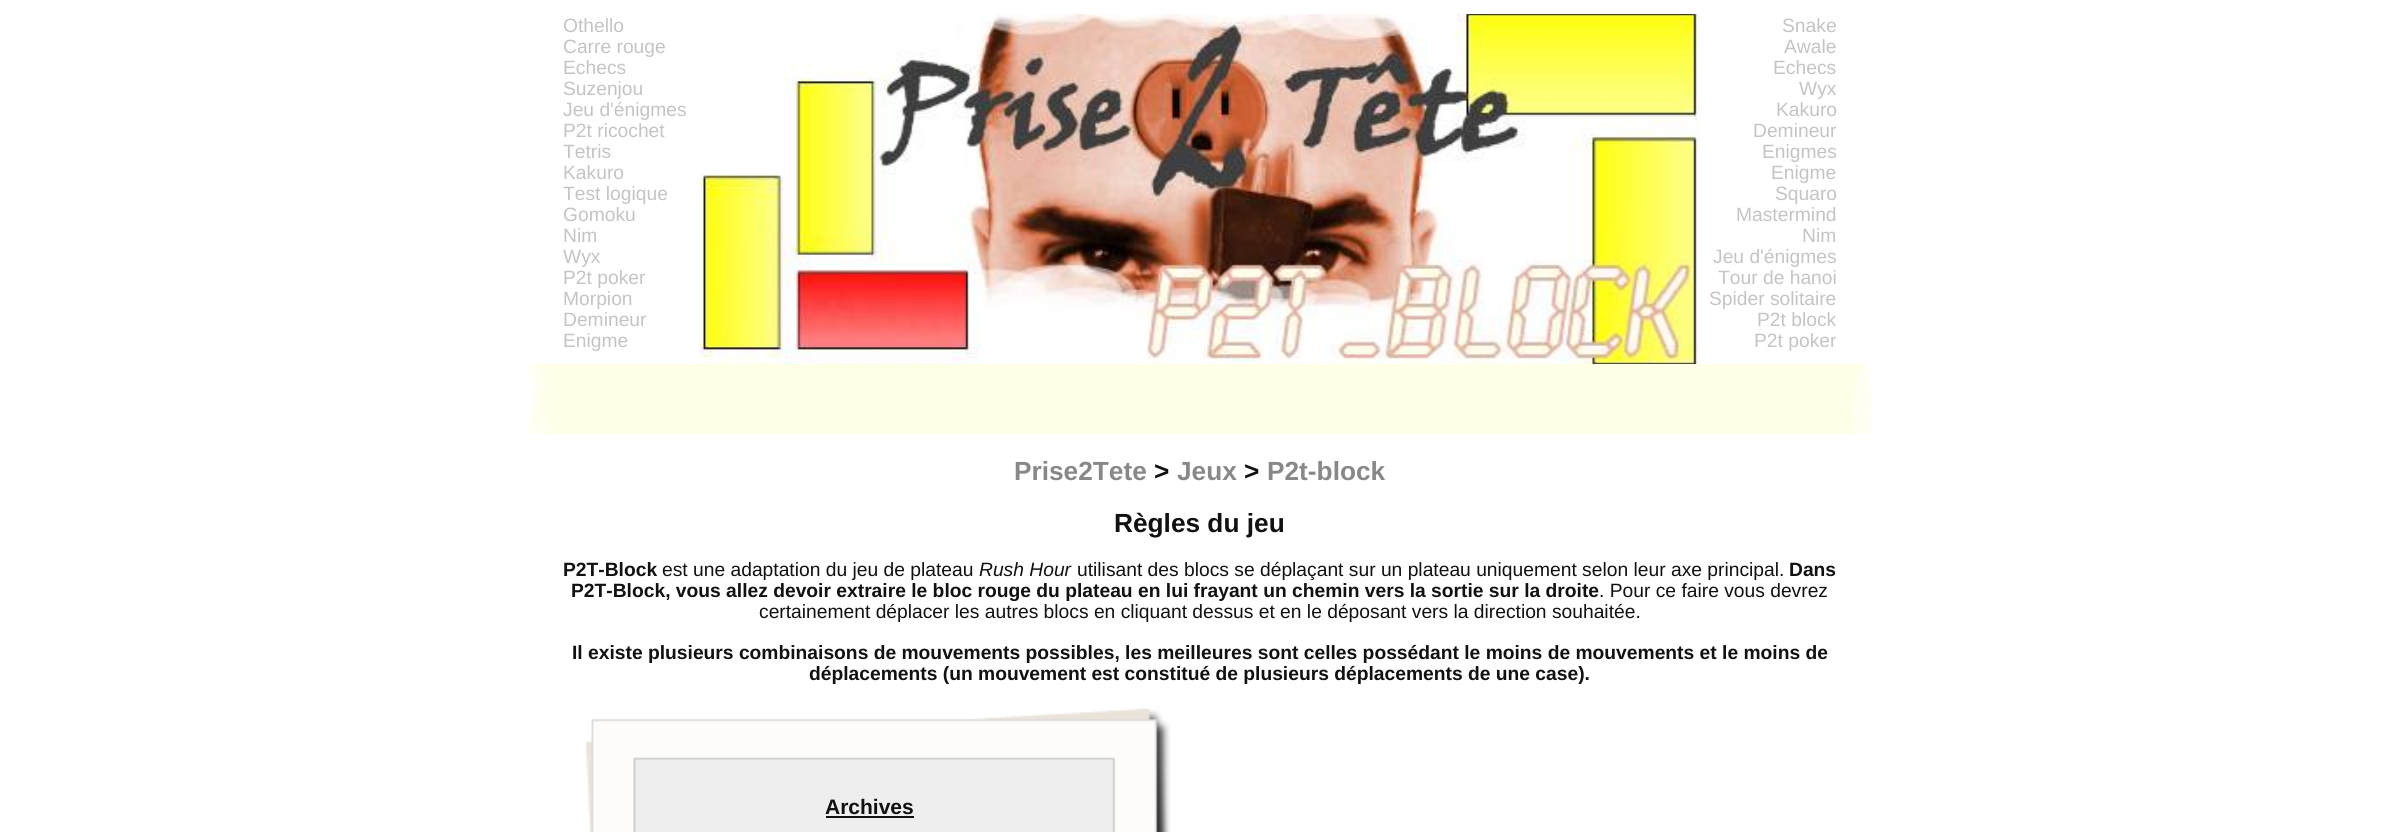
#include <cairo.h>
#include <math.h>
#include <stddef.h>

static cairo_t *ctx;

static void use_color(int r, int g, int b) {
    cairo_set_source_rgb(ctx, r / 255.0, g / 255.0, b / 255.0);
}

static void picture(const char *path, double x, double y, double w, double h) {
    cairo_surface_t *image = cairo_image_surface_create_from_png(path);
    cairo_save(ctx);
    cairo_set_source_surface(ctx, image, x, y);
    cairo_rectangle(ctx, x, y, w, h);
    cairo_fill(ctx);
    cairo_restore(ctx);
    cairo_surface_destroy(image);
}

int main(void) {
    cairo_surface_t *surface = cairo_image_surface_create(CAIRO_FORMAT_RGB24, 2398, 832);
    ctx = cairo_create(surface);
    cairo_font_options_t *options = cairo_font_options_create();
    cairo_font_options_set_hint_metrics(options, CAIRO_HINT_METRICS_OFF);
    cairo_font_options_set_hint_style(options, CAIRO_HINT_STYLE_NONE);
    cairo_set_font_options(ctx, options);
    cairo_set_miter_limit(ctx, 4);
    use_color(255, 255, 255);
    cairo_paint(ctx);
    picture("img1.png", 700, 14, 1000, 350);
    cairo_select_font_face(ctx, "Liberation Sans", CAIRO_FONT_SLANT_NORMAL, CAIRO_FONT_WEIGHT_NORMAL);
    cairo_set_font_size(ctx, 19.25);
    use_color(196, 196, 196);
    cairo_move_to(ctx, 563, 32);
    cairo_show_text(ctx, "Othello");
    cairo_move_to(ctx, 563, 53);
    cairo_show_text(ctx, "Carre rouge");
    cairo_move_to(ctx, 563, 74);
    cairo_show_text(ctx, "Echecs");
    cairo_move_to(ctx, 563, 95);
    cairo_show_text(ctx, "Suzenjou");
    cairo_move_to(ctx, 563, 116);
    cairo_show_text(ctx, "Jeu d'énigmes");
    cairo_move_to(ctx, 563, 137);
    cairo_show_text(ctx, "P2t ricochet");
    cairo_move_to(ctx, 563, 158);
    cairo_show_text(ctx, "Tetris");
    cairo_move_to(ctx, 563, 179);
    cairo_show_text(ctx, "Kakuro");
    cairo_move_to(ctx, 563, 200);
    cairo_show_text(ctx, "Test logique");
    cairo_move_to(ctx, 563, 221);
    cairo_show_text(ctx, "Gomoku");
    cairo_move_to(ctx, 563, 242);
    cairo_show_text(ctx, "Nim");
    cairo_move_to(ctx, 563, 263);
    cairo_show_text(ctx, "Wyx");
    cairo_move_to(ctx, 563, 284);
    cairo_show_text(ctx, "P2t poker");
    cairo_move_to(ctx, 563, 305);
    cairo_show_text(ctx, "Morpion");
    cairo_move_to(ctx, 563, 326);
    cairo_show_text(ctx, "Demineur");
    cairo_move_to(ctx, 563, 347);
    cairo_show_text(ctx, "Enigme");
    cairo_move_to(ctx, 1782, 32);
    cairo_show_text(ctx, "Snake");
    cairo_move_to(ctx, 1784, 53);
    cairo_show_text(ctx, "Awale");
    cairo_move_to(ctx, 1773, 74);
    cairo_show_text(ctx, "Echecs");
    cairo_move_to(ctx, 1799, 95);
    cairo_show_text(ctx, "Wyx");
    cairo_move_to(ctx, 1776, 116);
    cairo_show_text(ctx, "Kakuro");
    cairo_move_to(ctx, 1753, 137);
    cairo_show_text(ctx, "Demineur");
    cairo_move_to(ctx, 1762, 158);
    cairo_show_text(ctx, "Enigmes");
    cairo_move_to(ctx, 1771, 179);
    cairo_show_text(ctx, "Enigme");
    cairo_move_to(ctx, 1775, 200);
    cairo_show_text(ctx, "Squaro");
    cairo_move_to(ctx, 1736, 221);
    cairo_show_text(ctx, "Mastermind");
    cairo_move_to(ctx, 1802, 242);
    cairo_show_text(ctx, "Nim");
    cairo_move_to(ctx, 1713, 263);
    cairo_show_text(ctx, "Jeu d'énigmes");
    cairo_move_to(ctx, 1718, 284);
    cairo_show_text(ctx, "Tour de hanoi");
    cairo_move_to(ctx, 1709, 305);
    cairo_show_text(ctx, "Spider solitaire");
    cairo_move_to(ctx, 1757, 326);
    cairo_show_text(ctx, "P2t block");
    cairo_move_to(ctx, 1754, 347);
    cairo_show_text(ctx, "P2t poker");
    picture("img2.png", 528, 364, 1345, 70);
    cairo_select_font_face(ctx, "Liberation Sans", CAIRO_FONT_SLANT_NORMAL, CAIRO_FONT_WEIGHT_BOLD);
    cairo_set_font_size(ctx, 26.25);
    use_color(136, 136, 136);
    cairo_move_to(ctx, 1014, 480);
    cairo_show_text(ctx, "Prise2Tete");
    use_color(17, 17, 17);
    cairo_move_to(ctx, 1154, 480);
    cairo_show_text(ctx, ">");
    use_color(136, 136, 136);
    cairo_move_to(ctx, 1177, 480);
    cairo_show_text(ctx, "Jeux");
    use_color(17, 17, 17);
    cairo_move_to(ctx, 1244, 480);
    cairo_show_text(ctx, ">");
    use_color(136, 136, 136);
    cairo_move_to(ctx, 1267, 480);
    cairo_show_text(ctx, "P2t-block");
    use_color(17, 17, 17);
    cairo_move_to(ctx, 1114, 532);
    cairo_show_text(ctx, "Règles du jeu");
    cairo_set_font_size(ctx, 19.25);
    cairo_move_to(ctx, 563, 576);
    cairo_show_text(ctx, "P2T-Block");
    cairo_select_font_face(ctx, "Liberation Sans", CAIRO_FONT_SLANT_NORMAL, CAIRO_FONT_WEIGHT_NORMAL);
    cairo_move_to(ctx, 662, 576);
    cairo_show_text(ctx, "est une adaptation du jeu de plateau");
    cairo_select_font_face(ctx, "Liberation Sans", CAIRO_FONT_SLANT_ITALIC, CAIRO_FONT_WEIGHT_NORMAL);
    cairo_move_to(ctx, 979, 576);
    cairo_show_text(ctx, "Rush Hour");
    cairo_select_font_face(ctx, "Liberation Sans", CAIRO_FONT_SLANT_NORMAL, CAIRO_FONT_WEIGHT_NORMAL);
    cairo_move_to(ctx, 1077, 576);
    cairo_show_text(ctx, "utilisant des blocs se déplaçant sur un plateau uniquement selon leur axe principal.");
    cairo_select_font_face(ctx, "Liberation Sans", CAIRO_FONT_SLANT_NORMAL, CAIRO_FONT_WEIGHT_BOLD);
    cairo_move_to(ctx, 1789, 576);
    cairo_show_text(ctx, "Dans");
    cairo_move_to(ctx, 571, 597);
    cairo_show_text(ctx, "P2T-Block, vous allez devoir extraire le bloc rouge du plateau en lui frayant un chemin vers la sortie sur la droite");
    cairo_select_font_face(ctx, "Liberation Sans", CAIRO_FONT_SLANT_NORMAL, CAIRO_FONT_WEIGHT_NORMAL);
    cairo_move_to(ctx, 1599, 597);
    cairo_show_text(ctx, ". Pour ce faire vous devrez");
    cairo_move_to(ctx, 759, 618);
    cairo_show_text(ctx, "certainement déplacer les autres blocs en cliquant dessus et en le déposant vers la direction souhaitée.");
    cairo_select_font_face(ctx, "Liberation Sans", CAIRO_FONT_SLANT_NORMAL, CAIRO_FONT_WEIGHT_BOLD);
    cairo_move_to(ctx, 572, 659);
    cairo_show_text(ctx, "Il existe plusieurs combinaisons de mouvements possibles, les meilleures sont celles possédant le moins de mouvements et le moins de");
    cairo_move_to(ctx, 809, 680);
    cairo_show_text(ctx, "déplacements (un mouvement est constitué de plusieurs déplacements de une case).");
    picture("img3.png", 586, 708, 585, 124);
    cairo_set_font_size(ctx, 21);
    cairo_move_to(ctx, 825, 814);
    cairo_show_text(ctx, "Archives");
    cairo_rectangle(ctx, 826, 816, 88, 2);
    cairo_fill(ctx);
    cairo_surface_write_to_png(surface, "result.png");
    cairo_font_options_destroy(options);
    cairo_destroy(ctx);
    cairo_surface_destroy(surface);
    return 0;
}
